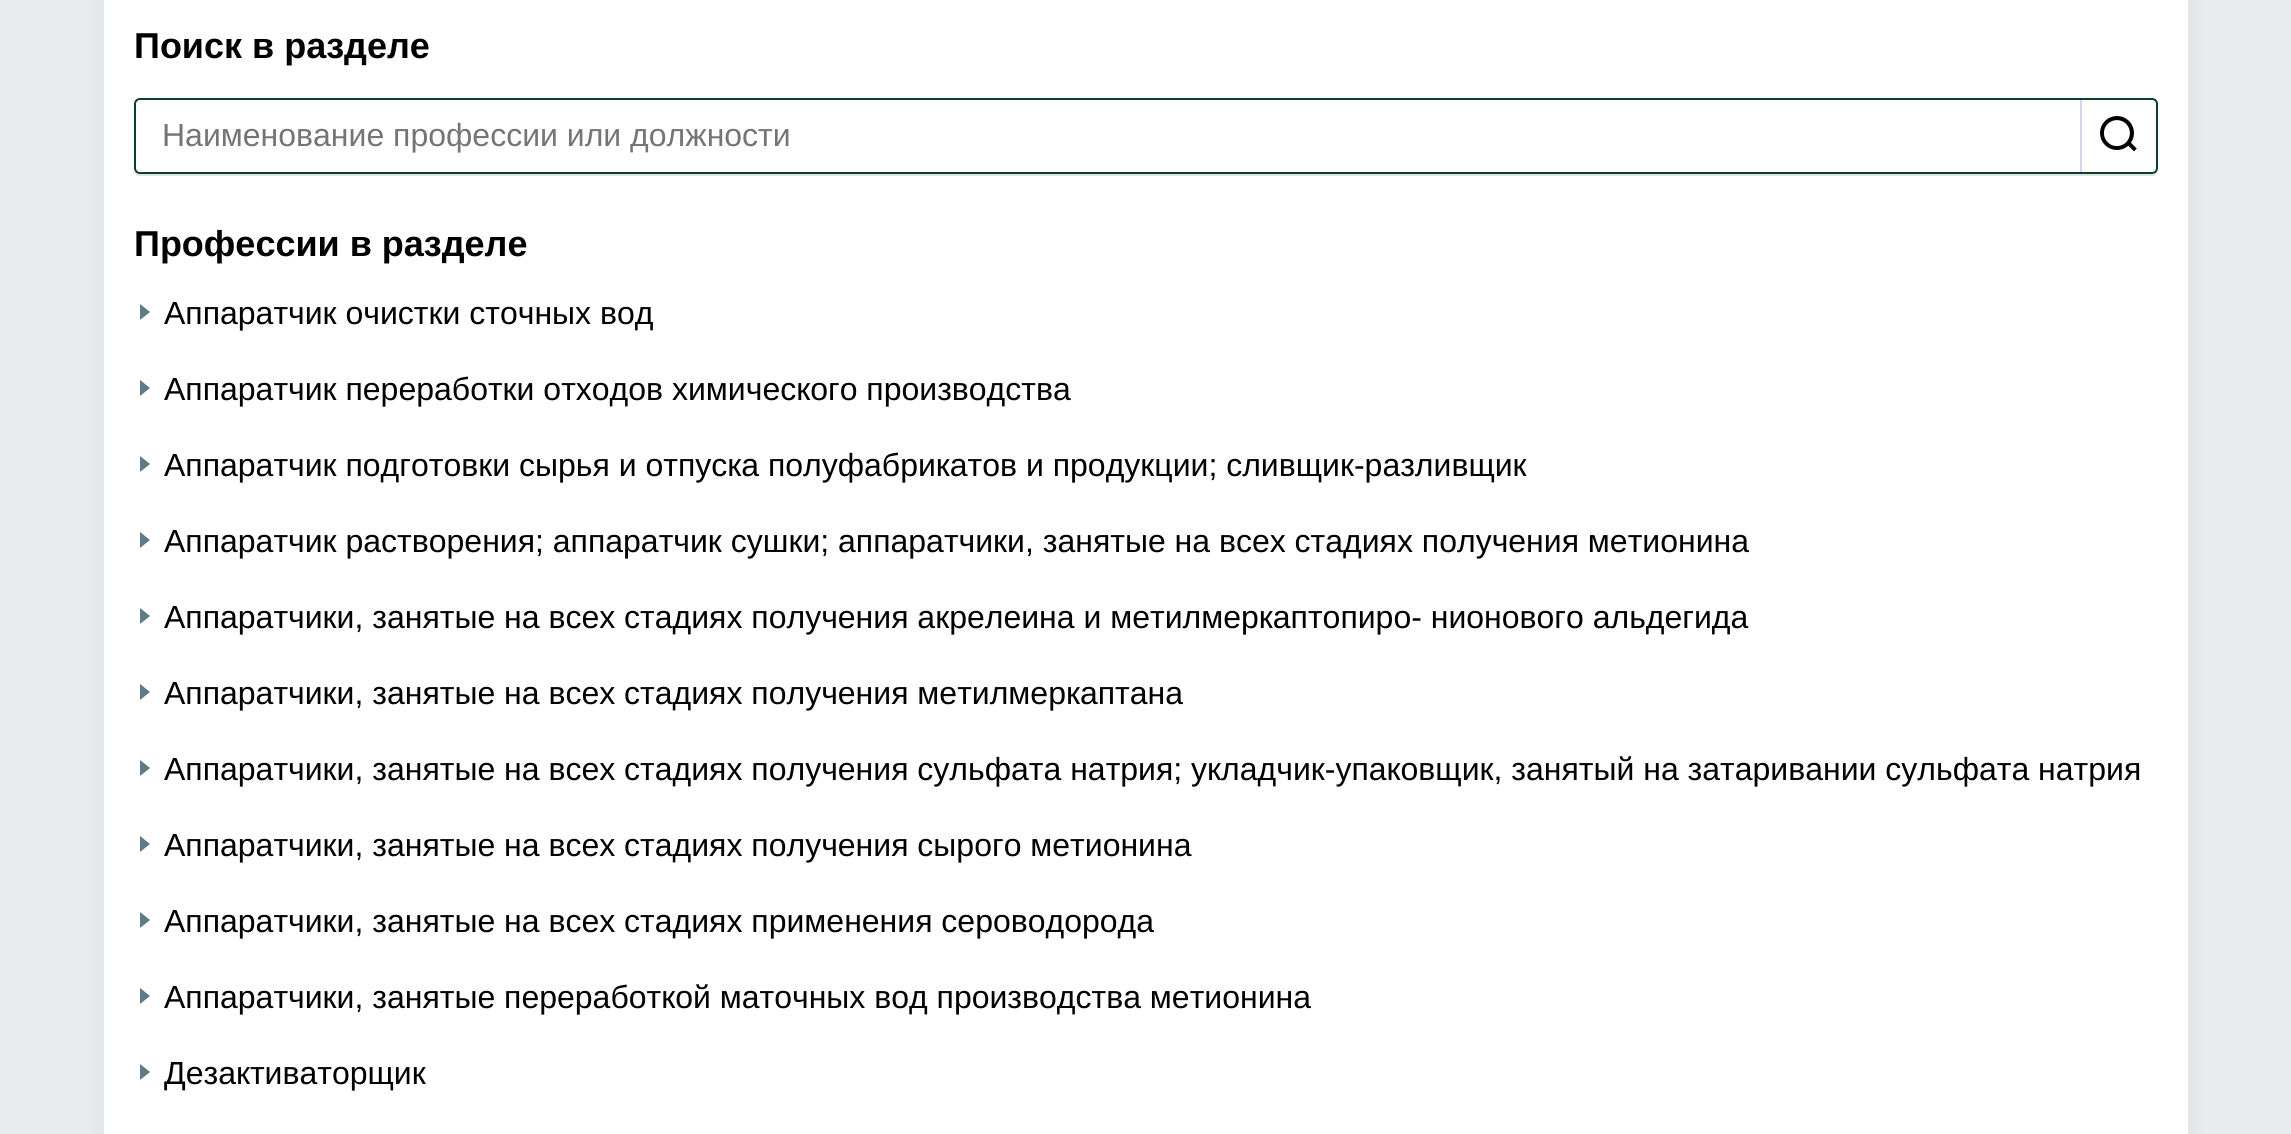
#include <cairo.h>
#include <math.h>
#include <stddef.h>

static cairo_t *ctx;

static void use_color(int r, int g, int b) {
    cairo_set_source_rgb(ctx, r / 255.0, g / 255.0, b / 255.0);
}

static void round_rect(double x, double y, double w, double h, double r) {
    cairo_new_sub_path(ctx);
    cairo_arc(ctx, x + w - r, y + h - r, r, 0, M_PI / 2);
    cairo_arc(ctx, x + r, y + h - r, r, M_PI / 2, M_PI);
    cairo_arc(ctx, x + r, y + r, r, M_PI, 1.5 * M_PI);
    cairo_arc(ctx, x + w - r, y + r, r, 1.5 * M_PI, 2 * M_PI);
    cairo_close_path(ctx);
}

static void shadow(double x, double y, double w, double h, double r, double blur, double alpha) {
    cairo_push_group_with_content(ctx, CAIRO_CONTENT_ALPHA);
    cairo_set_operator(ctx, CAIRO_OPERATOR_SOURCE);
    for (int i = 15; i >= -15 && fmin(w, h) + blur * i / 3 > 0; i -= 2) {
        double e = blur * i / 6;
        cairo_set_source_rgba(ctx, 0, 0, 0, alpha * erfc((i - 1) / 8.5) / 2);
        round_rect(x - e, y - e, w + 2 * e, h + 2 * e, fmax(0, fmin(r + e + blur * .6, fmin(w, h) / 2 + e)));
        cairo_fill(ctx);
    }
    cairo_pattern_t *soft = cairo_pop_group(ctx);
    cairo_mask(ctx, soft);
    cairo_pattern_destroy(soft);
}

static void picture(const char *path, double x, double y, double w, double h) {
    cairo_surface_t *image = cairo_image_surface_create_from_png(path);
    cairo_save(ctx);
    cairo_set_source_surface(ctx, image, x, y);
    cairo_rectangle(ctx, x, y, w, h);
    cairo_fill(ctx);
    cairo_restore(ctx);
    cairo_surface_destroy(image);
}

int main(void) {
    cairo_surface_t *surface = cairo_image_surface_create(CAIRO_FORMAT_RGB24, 2291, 1134);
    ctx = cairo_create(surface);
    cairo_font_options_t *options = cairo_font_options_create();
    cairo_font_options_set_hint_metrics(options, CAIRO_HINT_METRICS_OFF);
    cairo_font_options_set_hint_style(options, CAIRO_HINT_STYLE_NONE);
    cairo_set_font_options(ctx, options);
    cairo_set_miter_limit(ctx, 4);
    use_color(232, 235, 237);
    cairo_paint(ctx);
    use_color(0, 0, 0);
    shadow(104, -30, 2084, 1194, 0, 10, 0.05);
    use_color(255, 255, 255);
    cairo_rectangle(ctx, 104, 0, 2084, 1134);
    cairo_fill(ctx);
    cairo_select_font_face(ctx, "Liberation Sans", CAIRO_FONT_SLANT_NORMAL, CAIRO_FONT_WEIGHT_BOLD);
    cairo_set_font_size(ctx, 36);
    use_color(0, 0, 0);
    cairo_move_to(ctx, 134, 58);
    cairo_show_text(ctx, "Поиск в разделе");
    use_color(227, 227, 227);
    cairo_new_path(ctx);
    cairo_move_to(ctx, 134, 168);
    cairo_curve_to(ctx, 134, 172, 135, 176, 140, 176);
    cairo_line_to(ctx, 2152, 176);
    cairo_curve_to(ctx, 2157, 176, 2158, 172, 2158, 168);
    cairo_curve_to(ctx, 2158, 171, 2155, 174, 2152, 174);
    cairo_line_to(ctx, 140, 174);
    cairo_curve_to(ctx, 137, 174, 134, 171, 134, 168);
    cairo_close_path(ctx);
    cairo_fill(ctx);
    use_color(255, 255, 255);
    round_rect(135, 99, 2022, 74, 5);
    cairo_fill_preserve(ctx);
    use_color(9, 65, 47);
    cairo_stroke(ctx);
    cairo_select_font_face(ctx, "Liberation Sans", CAIRO_FONT_SLANT_NORMAL, CAIRO_FONT_WEIGHT_NORMAL);
    cairo_set_font_size(ctx, 32);
    use_color(117, 117, 117);
    cairo_move_to(ctx, 162, 146);
    cairo_show_text(ctx, "Наименование профессии или должности");
    use_color(255, 255, 255);
    cairo_new_path(ctx);
    cairo_move_to(ctx, 2080, 100);
    cairo_line_to(ctx, 2150, 100);
    cairo_curve_to(ctx, 2153.5, 100, 2156, 102.5, 2156, 106);
    cairo_line_to(ctx, 2156, 166);
    cairo_curve_to(ctx, 2156, 169.5, 2153.5, 172, 2150, 172);
    cairo_line_to(ctx, 2080, 172);
    cairo_close_path(ctx);
    cairo_fill(ctx);
    picture("img1.png", 2100, 116, 37, 36);
    use_color(214, 214, 235);
    cairo_rectangle(ctx, 2080, 100, 2, 72);
    cairo_fill(ctx);
    cairo_select_font_face(ctx, "Liberation Sans", CAIRO_FONT_SLANT_NORMAL, CAIRO_FONT_WEIGHT_BOLD);
    cairo_set_font_size(ctx, 36);
    use_color(0, 0, 0);
    cairo_move_to(ctx, 134, 256);
    cairo_show_text(ctx, "Профессии в разделе");
    use_color(95, 123, 133);
    cairo_new_path(ctx);
    cairo_move_to(ctx, 140, 320);
    cairo_line_to(ctx, 140, 304);
    cairo_line_to(ctx, 150, 312);
    cairo_close_path(ctx);
    cairo_fill(ctx);
    cairo_select_font_face(ctx, "Liberation Sans", CAIRO_FONT_SLANT_NORMAL, CAIRO_FONT_WEIGHT_NORMAL);
    cairo_set_font_size(ctx, 32);
    use_color(0, 0, 0);
    cairo_move_to(ctx, 164, 324);
    cairo_show_text(ctx, "Аппаратчик очистки сточных вод");
    use_color(95, 123, 133);
    cairo_new_path(ctx);
    cairo_move_to(ctx, 140, 396);
    cairo_line_to(ctx, 140, 380);
    cairo_line_to(ctx, 150, 388);
    cairo_close_path(ctx);
    cairo_fill(ctx);
    use_color(0, 0, 0);
    cairo_move_to(ctx, 164, 400);
    cairo_show_text(ctx, "Аппаратчик переработки отходов химического производства");
    use_color(95, 123, 133);
    cairo_new_path(ctx);
    cairo_move_to(ctx, 140, 472);
    cairo_line_to(ctx, 140, 456);
    cairo_line_to(ctx, 150, 464);
    cairo_close_path(ctx);
    cairo_fill(ctx);
    use_color(0, 0, 0);
    cairo_move_to(ctx, 164, 476);
    cairo_show_text(ctx, "Аппаратчик подготовки сырья и отпуска полуфабрикатов и продукции; сливщик-разливщик");
    use_color(95, 123, 133);
    cairo_new_path(ctx);
    cairo_move_to(ctx, 140, 548);
    cairo_line_to(ctx, 140, 532);
    cairo_line_to(ctx, 150, 540);
    cairo_close_path(ctx);
    cairo_fill(ctx);
    use_color(0, 0, 0);
    cairo_move_to(ctx, 164, 552);
    cairo_show_text(ctx, "Аппаратчик растворения; аппаратчик сушки; аппаратчики, занятые на всех стадиях получения метионина");
    use_color(95, 123, 133);
    cairo_new_path(ctx);
    cairo_move_to(ctx, 140, 624);
    cairo_line_to(ctx, 140, 608);
    cairo_line_to(ctx, 150, 616);
    cairo_close_path(ctx);
    cairo_fill(ctx);
    use_color(0, 0, 0);
    cairo_move_to(ctx, 164, 628);
    cairo_show_text(ctx, "Аппаратчики, занятые на всех стадиях получения акрелеина и метилмеркаптопиро- нионового альдегида");
    use_color(95, 123, 133);
    cairo_new_path(ctx);
    cairo_move_to(ctx, 140, 700);
    cairo_line_to(ctx, 140, 684);
    cairo_line_to(ctx, 150, 692);
    cairo_close_path(ctx);
    cairo_fill(ctx);
    use_color(0, 0, 0);
    cairo_move_to(ctx, 164, 704);
    cairo_show_text(ctx, "Аппаратчики, занятые на всех стадиях получения метилмеркаптана");
    use_color(95, 123, 133);
    cairo_new_path(ctx);
    cairo_move_to(ctx, 140, 776);
    cairo_line_to(ctx, 140, 760);
    cairo_line_to(ctx, 150, 768);
    cairo_close_path(ctx);
    cairo_fill(ctx);
    use_color(0, 0, 0);
    cairo_move_to(ctx, 164, 780);
    cairo_show_text(ctx, "Аппаратчики, занятые на всех стадиях получения сульфата натрия; укладчик-упаковщик, занятый на затаривании сульфата натрия");
    use_color(95, 123, 133);
    cairo_new_path(ctx);
    cairo_move_to(ctx, 140, 852);
    cairo_line_to(ctx, 140, 836);
    cairo_line_to(ctx, 150, 844);
    cairo_close_path(ctx);
    cairo_fill(ctx);
    use_color(0, 0, 0);
    cairo_move_to(ctx, 164, 856);
    cairo_show_text(ctx, "Аппаратчики, занятые на всех стадиях получения сырого метионина");
    use_color(95, 123, 133);
    cairo_new_path(ctx);
    cairo_move_to(ctx, 140, 928);
    cairo_line_to(ctx, 140, 912);
    cairo_line_to(ctx, 150, 920);
    cairo_close_path(ctx);
    cairo_fill(ctx);
    use_color(0, 0, 0);
    cairo_move_to(ctx, 164, 932);
    cairo_show_text(ctx, "Аппаратчики, занятые на всех стадиях применения сероводорода");
    use_color(95, 123, 133);
    cairo_new_path(ctx);
    cairo_move_to(ctx, 140, 1004);
    cairo_line_to(ctx, 140, 988);
    cairo_line_to(ctx, 150, 996);
    cairo_close_path(ctx);
    cairo_fill(ctx);
    use_color(0, 0, 0);
    cairo_move_to(ctx, 164, 1008);
    cairo_show_text(ctx, "Аппаратчики, занятые переработкой маточных вод производства метионина");
    use_color(95, 123, 133);
    cairo_new_path(ctx);
    cairo_move_to(ctx, 140, 1080);
    cairo_line_to(ctx, 140, 1064);
    cairo_line_to(ctx, 150, 1072);
    cairo_close_path(ctx);
    cairo_fill(ctx);
    use_color(0, 0, 0);
    cairo_move_to(ctx, 164, 1084);
    cairo_show_text(ctx, "Дезактиваторщик");
    cairo_surface_write_to_png(surface, "result.png");
    cairo_font_options_destroy(options);
    cairo_destroy(ctx);
    cairo_surface_destroy(surface);
    return 0;
}
